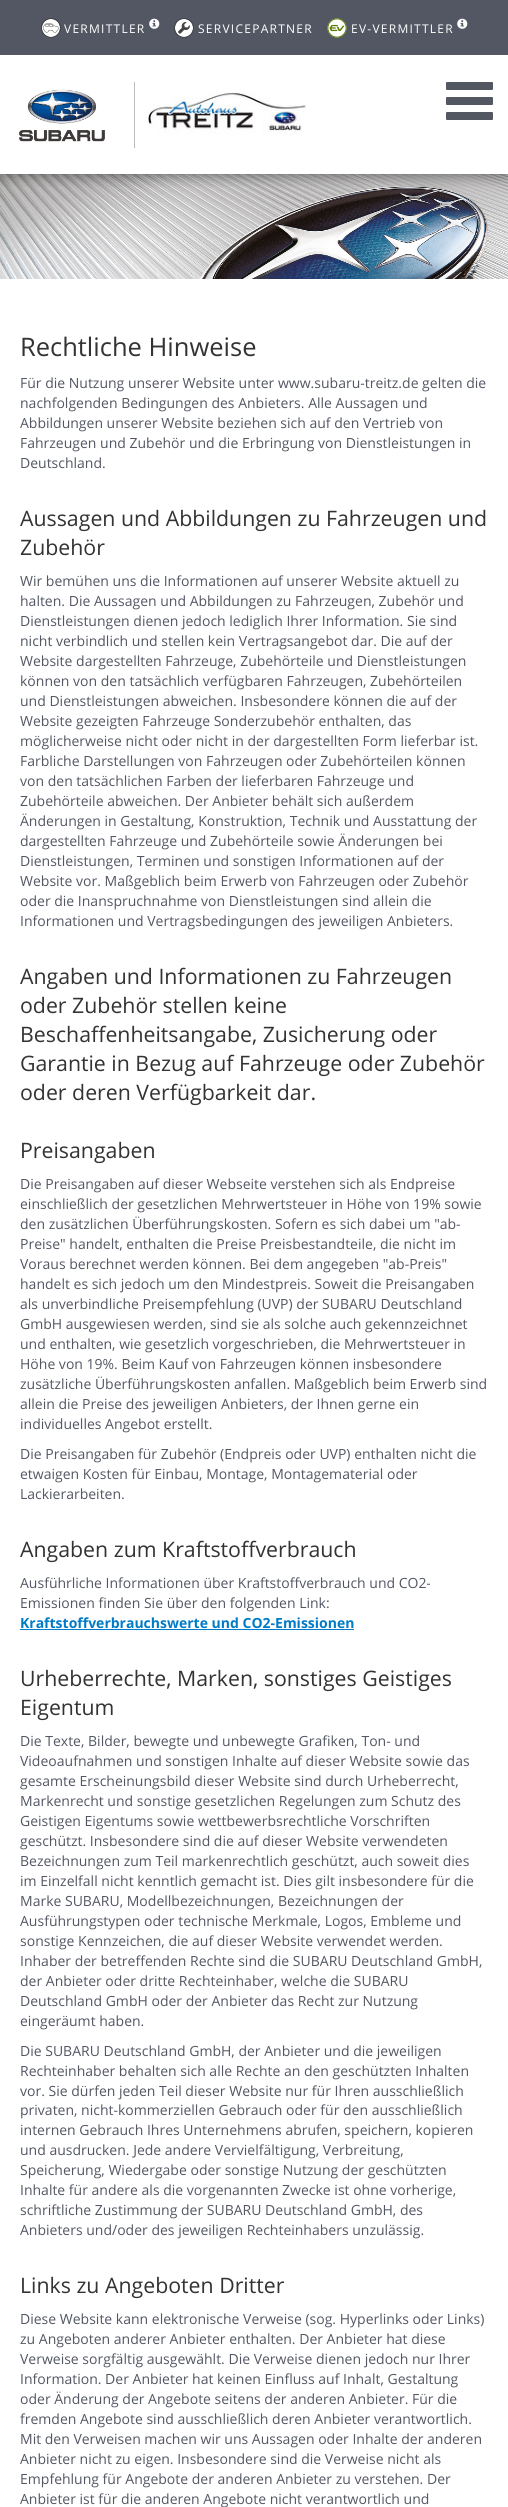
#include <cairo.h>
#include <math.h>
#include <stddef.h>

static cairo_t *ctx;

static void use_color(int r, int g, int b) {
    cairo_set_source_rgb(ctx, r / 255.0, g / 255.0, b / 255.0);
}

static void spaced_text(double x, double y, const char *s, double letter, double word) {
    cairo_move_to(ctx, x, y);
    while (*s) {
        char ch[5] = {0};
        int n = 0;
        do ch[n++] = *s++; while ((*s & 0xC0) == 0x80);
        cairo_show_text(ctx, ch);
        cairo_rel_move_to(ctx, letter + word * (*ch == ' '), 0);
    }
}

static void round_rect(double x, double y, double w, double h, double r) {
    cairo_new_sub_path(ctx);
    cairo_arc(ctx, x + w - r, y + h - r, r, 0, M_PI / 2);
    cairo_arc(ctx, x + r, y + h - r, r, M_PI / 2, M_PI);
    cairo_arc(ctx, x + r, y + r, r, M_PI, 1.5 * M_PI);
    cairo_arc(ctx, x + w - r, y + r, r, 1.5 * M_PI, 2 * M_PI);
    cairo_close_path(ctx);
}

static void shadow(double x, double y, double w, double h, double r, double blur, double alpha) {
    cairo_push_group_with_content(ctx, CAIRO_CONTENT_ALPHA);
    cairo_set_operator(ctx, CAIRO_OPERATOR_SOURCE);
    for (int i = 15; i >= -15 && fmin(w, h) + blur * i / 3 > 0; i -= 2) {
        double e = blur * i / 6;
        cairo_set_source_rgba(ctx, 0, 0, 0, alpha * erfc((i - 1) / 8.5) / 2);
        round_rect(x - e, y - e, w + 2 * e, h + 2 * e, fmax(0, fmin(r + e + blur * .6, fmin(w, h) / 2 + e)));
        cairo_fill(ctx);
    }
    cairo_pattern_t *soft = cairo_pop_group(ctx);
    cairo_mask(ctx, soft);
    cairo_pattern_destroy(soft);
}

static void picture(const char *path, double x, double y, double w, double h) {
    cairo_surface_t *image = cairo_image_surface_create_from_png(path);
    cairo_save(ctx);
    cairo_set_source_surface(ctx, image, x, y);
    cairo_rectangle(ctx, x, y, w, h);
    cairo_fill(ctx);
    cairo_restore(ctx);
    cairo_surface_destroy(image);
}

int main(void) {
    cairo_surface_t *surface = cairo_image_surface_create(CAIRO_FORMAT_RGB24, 508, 2507);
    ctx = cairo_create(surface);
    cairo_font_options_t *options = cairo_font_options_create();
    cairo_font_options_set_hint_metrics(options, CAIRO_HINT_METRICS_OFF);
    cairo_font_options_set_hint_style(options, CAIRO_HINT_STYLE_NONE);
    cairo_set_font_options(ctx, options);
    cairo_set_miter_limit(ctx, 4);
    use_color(255, 255, 255);
    cairo_paint(ctx);
    picture("img7.png", 0, 174, 508, 105);
    cairo_save(ctx);
    cairo_rectangle(ctx, 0, 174, 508, 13);
    cairo_clip(ctx);
    use_color(0, 0, 0);
    shadow(0, 0, 508, 174, 0, 7.5, 0.5);
    cairo_restore(ctx);
    use_color(83, 87, 99);
    cairo_rectangle(ctx, 0, 0, 508, 55);
    cairo_fill(ctx);
    picture("img1.png", 41, 18, 20, 20);
    cairo_select_font_face(ctx, "Open Sans", CAIRO_FONT_SLANT_NORMAL, CAIRO_FONT_WEIGHT_NORMAL);
    cairo_set_font_size(ctx, 12);
    use_color(255, 255, 255);
    spaced_text(64, 33, "VERMITTLER", 1.25, 0);
    picture("img2.png", 149, 18, 11, 11);
    picture("img3.png", 174, 18, 20, 20);
    spaced_text(198, 33, "SERVICEPARTNER", 1.25, 0);
    picture("img4.png", 327, 18, 20, 20);
    spaced_text(351, 33, "EV-VERMITTLER", 1.25, 0);
    picture("img2.png", 457, 18, 11, 11);
    picture("img5.png", 19, 89, 86, 53);
    use_color(188, 188, 188);
    cairo_rectangle(ctx, 134, 82, 1, 66);
    cairo_fill(ctx);
    picture("img6.png", 146, 92, 160, 43);
    use_color(82, 87, 98);
    round_rect(446, 82, 47, 8, 1);
    cairo_fill(ctx);
    round_rect(446, 97, 47, 8, 1);
    cairo_fill(ctx);
    round_rect(446, 112, 47, 8, 1);
    cairo_fill(ctx);
    cairo_set_font_size(ctx, 25.5);
    use_color(51, 51, 51);
    cairo_move_to(ctx, 20, 356);
    cairo_show_text(ctx, "Rechtliche Hinweise");
    cairo_set_font_size(ctx, 14);
    use_color(83, 87, 99);
    cairo_move_to(ctx, 20, 388);
    cairo_show_text(ctx, "Für die Nutzung unserer Website unter www.subaru-treitz.de gelten die");
    cairo_move_to(ctx, 20, 408);
    cairo_show_text(ctx, "nachfolgenden Bedingungen des Anbieters. Alle Aussagen und");
    cairo_move_to(ctx, 20, 428);
    cairo_show_text(ctx, "Abbildungen unserer Website beziehen sich auf den Vertrieb von");
    cairo_move_to(ctx, 20, 448);
    cairo_show_text(ctx, "Fahrzeugen und Zubehör und die Erbringung von Dienstleistungen in");
    cairo_move_to(ctx, 20, 468);
    cairo_show_text(ctx, "Deutschland.");
    cairo_set_font_size(ctx, 21.3);
    use_color(51, 51, 51);
    cairo_move_to(ctx, 20, 526);
    cairo_show_text(ctx, "Aussagen und Abbildungen zu Fahrzeugen und");
    cairo_move_to(ctx, 20, 555);
    cairo_show_text(ctx, "Zubehör");
    cairo_set_font_size(ctx, 14);
    use_color(83, 87, 99);
    cairo_move_to(ctx, 20, 586);
    cairo_show_text(ctx, "Wir bemühen uns die Informationen auf unserer Website aktuell zu");
    cairo_move_to(ctx, 20, 606);
    cairo_show_text(ctx, "halten. Die Aussagen und Abbildungen zu Fahrzeugen, Zubehör und");
    cairo_move_to(ctx, 20, 626);
    cairo_show_text(ctx, "Dienstleistungen dienen jedoch lediglich Ihrer Information. Sie sind");
    cairo_move_to(ctx, 20, 646);
    cairo_show_text(ctx, "nicht verbindlich und stellen kein Vertragsangebot dar. Die auf der");
    cairo_move_to(ctx, 20, 666);
    cairo_show_text(ctx, "Website dargestellten Fahrzeuge, Zubehörteile und Dienstleistungen");
    cairo_move_to(ctx, 20, 686);
    cairo_show_text(ctx, "können von den tatsächlich verfügbaren Fahrzeugen, Zubehörteilen");
    cairo_move_to(ctx, 20, 706);
    cairo_show_text(ctx, "und Dienstleistungen abweichen. Insbesondere können die auf der");
    cairo_move_to(ctx, 20, 726);
    cairo_show_text(ctx, "Website gezeigten Fahrzeuge Sonderzubehör enthalten, das");
    cairo_move_to(ctx, 20, 746);
    cairo_show_text(ctx, "möglicherweise nicht oder nicht in der dargestellten Form lieferbar ist.");
    cairo_move_to(ctx, 20, 766);
    cairo_show_text(ctx, "Farbliche Darstellungen von Fahrzeugen oder Zubehörteilen können");
    cairo_move_to(ctx, 20, 786);
    cairo_show_text(ctx, "von den tatsächlichen Farben der lieferbaren Fahrzeuge und");
    cairo_move_to(ctx, 20, 806);
    cairo_show_text(ctx, "Zubehörteile abweichen. Der Anbieter behält sich außerdem");
    cairo_move_to(ctx, 20, 826);
    cairo_show_text(ctx, "Änderungen in Gestaltung, Konstruktion, Technik und Ausstattung der");
    cairo_move_to(ctx, 20, 846);
    cairo_show_text(ctx, "dargestellten Fahrzeuge und Zubehörteile sowie Änderungen bei");
    cairo_move_to(ctx, 20, 866);
    cairo_show_text(ctx, "Dienstleistungen, Terminen und sonstigen Informationen auf der");
    cairo_move_to(ctx, 20, 886);
    cairo_show_text(ctx, "Website vor. Maßgeblich beim Erwerb von Fahrzeugen oder Zubehör");
    cairo_move_to(ctx, 20, 906);
    cairo_show_text(ctx, "oder die Inanspruchnahme von Dienstleistungen sind allein die");
    cairo_move_to(ctx, 20, 926);
    cairo_show_text(ctx, "Informationen und Vertragsbedingungen des jeweiligen Anbieters.");
    cairo_set_font_size(ctx, 21.3);
    use_color(51, 51, 51);
    cairo_move_to(ctx, 20, 984);
    cairo_show_text(ctx, "Angaben und Informationen zu Fahrzeugen");
    cairo_move_to(ctx, 20, 1013);
    cairo_show_text(ctx, "oder Zubehör stellen keine");
    cairo_move_to(ctx, 20, 1042);
    cairo_show_text(ctx, "Beschaffenheitsangabe, Zusicherung oder");
    cairo_move_to(ctx, 20, 1071);
    cairo_show_text(ctx, "Garantie in Bezug auf Fahrzeuge oder Zubehör");
    cairo_move_to(ctx, 20, 1100);
    cairo_show_text(ctx, "oder deren Verfügbarkeit dar.");
    cairo_move_to(ctx, 20, 1158);
    cairo_show_text(ctx, "Preisangaben");
    cairo_set_font_size(ctx, 14);
    use_color(83, 87, 99);
    cairo_move_to(ctx, 20, 1189);
    cairo_show_text(ctx, "Die Preisangaben auf dieser Webseite verstehen sich als Endpreise");
    cairo_move_to(ctx, 20, 1209);
    cairo_show_text(ctx, "einschließlich der gesetzlichen Mehrwertsteuer in Höhe von 19% sowie");
    cairo_move_to(ctx, 20, 1229);
    cairo_show_text(ctx, "den zusätzlichen Überführungskosten. Sofern es sich dabei um \"ab-");
    cairo_move_to(ctx, 20, 1249);
    cairo_show_text(ctx, "Preise\" handelt, enthalten die Preise Preisbestandteile, die nicht im");
    cairo_move_to(ctx, 20, 1269);
    cairo_show_text(ctx, "Voraus berechnet werden können. Bei dem angegeben \"ab-Preis\"");
    cairo_move_to(ctx, 20, 1289);
    cairo_show_text(ctx, "handelt es sich jedoch um den Mindestpreis. Soweit die Preisangaben");
    cairo_move_to(ctx, 20, 1309);
    cairo_show_text(ctx, "als unverbindliche Preisempfehlung (UVP) der SUBARU Deutschland");
    cairo_move_to(ctx, 20, 1329);
    cairo_show_text(ctx, "GmbH ausgewiesen werden, sind sie als solche auch gekennzeichnet");
    cairo_move_to(ctx, 20, 1349);
    cairo_show_text(ctx, "und enthalten, wie gesetzlich vorgeschrieben, die Mehrwertsteuer in");
    cairo_move_to(ctx, 20, 1369);
    cairo_show_text(ctx, "Höhe von 19%. Beim Kauf von Fahrzeugen können insbesondere");
    cairo_move_to(ctx, 20, 1389);
    cairo_show_text(ctx, "zusätzliche Überführungskosten anfallen. Maßgeblich beim Erwerb sind");
    cairo_move_to(ctx, 20, 1409);
    cairo_show_text(ctx, "allein die Preise des jeweiligen Anbieters, der Ihnen gerne ein");
    cairo_move_to(ctx, 20, 1429);
    cairo_show_text(ctx, "individuelles Angebot erstellt.");
    cairo_move_to(ctx, 20, 1459);
    cairo_show_text(ctx, "Die Preisangaben für Zubehör (Endpreis oder UVP) enthalten nicht die");
    cairo_move_to(ctx, 20, 1479);
    cairo_show_text(ctx, "etwaigen Kosten für Einbau, Montage, Montagematerial oder");
    cairo_move_to(ctx, 20, 1499);
    cairo_show_text(ctx, "Lackierarbeiten.");
    cairo_set_font_size(ctx, 21.3);
    use_color(51, 51, 51);
    cairo_move_to(ctx, 20, 1557);
    cairo_show_text(ctx, "Angaben zum Kraftstoffverbrauch");
    cairo_set_font_size(ctx, 14);
    use_color(83, 87, 99);
    cairo_move_to(ctx, 20, 1588);
    cairo_show_text(ctx, "Ausführliche Informationen über Kraftstoffverbrauch und CO2-");
    cairo_move_to(ctx, 20, 1608);
    cairo_show_text(ctx, "Emissionen finden Sie über den folgenden Link:");
    cairo_select_font_face(ctx, "Open Sans", CAIRO_FONT_SLANT_NORMAL, CAIRO_FONT_WEIGHT_BOLD);
    use_color(0, 123, 199);
    cairo_move_to(ctx, 20, 1628);
    cairo_show_text(ctx, "Kraftstoffverbrauchswerte und CO2-Emissionen");
    cairo_rectangle(ctx, 20, 1629, 334, 1);
    cairo_fill(ctx);
    cairo_select_font_face(ctx, "Open Sans", CAIRO_FONT_SLANT_NORMAL, CAIRO_FONT_WEIGHT_NORMAL);
    cairo_set_font_size(ctx, 21.3);
    use_color(51, 51, 51);
    cairo_move_to(ctx, 20, 1686);
    cairo_show_text(ctx, "Urheberrechte, Marken, sonstiges Geistiges");
    cairo_move_to(ctx, 20, 1715);
    cairo_show_text(ctx, "Eigentum");
    cairo_set_font_size(ctx, 14);
    use_color(83, 87, 99);
    cairo_move_to(ctx, 20, 1746);
    cairo_show_text(ctx, "Die Texte, Bilder, bewegte und unbewegte Grafiken, Ton- und");
    cairo_move_to(ctx, 20, 1766);
    cairo_show_text(ctx, "Videoaufnahmen und sonstigen Inhalte auf dieser Website sowie das");
    cairo_move_to(ctx, 20, 1786);
    cairo_show_text(ctx, "gesamte Erscheinungsbild dieser Website sind durch Urheberrecht,");
    cairo_move_to(ctx, 20, 1806);
    cairo_show_text(ctx, "Markenrecht und sonstige gesetzlichen Regelungen zum Schutz des");
    cairo_move_to(ctx, 20, 1826);
    cairo_show_text(ctx, "Geistigen Eigentums sowie wettbewerbsrechtliche Vorschriften");
    cairo_move_to(ctx, 20, 1846);
    cairo_show_text(ctx, "geschützt. Insbesondere sind die auf dieser Website verwendeten");
    cairo_move_to(ctx, 20, 1866);
    cairo_show_text(ctx, "Bezeichnungen zum Teil markenrechtlich geschützt, auch soweit dies");
    cairo_move_to(ctx, 20, 1886);
    cairo_show_text(ctx, "im Einzelfall nicht kenntlich gemacht ist. Dies gilt insbesondere für die");
    cairo_move_to(ctx, 20, 1906);
    cairo_show_text(ctx, "Marke SUBARU, Modellbezeichnungen, Bezeichnungen der");
    cairo_move_to(ctx, 20, 1926);
    cairo_show_text(ctx, "Ausführungstypen oder technische Merkmale, Logos, Embleme und");
    cairo_move_to(ctx, 20, 1946);
    cairo_show_text(ctx, "sonstige Kennzeichen, die auf dieser Website verwendet werden.");
    cairo_move_to(ctx, 20, 1966);
    cairo_show_text(ctx, "Inhaber der betreffenden Rechte sind die SUBARU Deutschland GmbH,");
    cairo_move_to(ctx, 20, 1986);
    cairo_show_text(ctx, "der Anbieter oder dritte Rechteinhaber, welche die SUBARU");
    cairo_move_to(ctx, 20, 2006);
    cairo_show_text(ctx, "Deutschland GmbH oder der Anbieter das Recht zur Nutzung");
    cairo_move_to(ctx, 20, 2026);
    cairo_show_text(ctx, "eingeräumt haben.");
    cairo_move_to(ctx, 20, 2056);
    cairo_show_text(ctx, "Die SUBARU Deutschland GmbH, der Anbieter und die jeweiligen");
    cairo_move_to(ctx, 20, 2076);
    cairo_show_text(ctx, "Rechteinhaber behalten sich alle Rechte an den geschützten Inhalten");
    cairo_move_to(ctx, 20, 2096);
    cairo_show_text(ctx, "vor. Sie dürfen jeden Teil dieser Website nur für Ihren ausschließlich");
    cairo_move_to(ctx, 20, 2115);
    cairo_show_text(ctx, "privaten, nicht-kommerziellen Gebrauch oder für den ausschließlich");
    cairo_move_to(ctx, 20, 2135);
    cairo_show_text(ctx, "internen Gebrauch Ihres Unternehmens abrufen, speichern, kopieren");
    cairo_move_to(ctx, 20, 2155);
    cairo_show_text(ctx, "und ausdrucken. Jede andere Vervielfältigung, Verbreitung,");
    cairo_move_to(ctx, 20, 2175);
    cairo_show_text(ctx, "Speicherung, Wiedergabe oder sonstige Nutzung der geschützten");
    cairo_move_to(ctx, 20, 2195);
    cairo_show_text(ctx, "Inhalte für andere als die vorgenannten Zwecke ist ohne vorherige,");
    cairo_move_to(ctx, 20, 2215);
    cairo_show_text(ctx, "schriftliche Zustimmung der SUBARU Deutschland GmbH, des");
    cairo_move_to(ctx, 20, 2235);
    cairo_show_text(ctx, "Anbieters und/oder des jeweiligen Rechteinhabers unzulässig.");
    cairo_set_font_size(ctx, 21.3);
    use_color(51, 51, 51);
    cairo_move_to(ctx, 20, 2293);
    cairo_show_text(ctx, "Links zu Angeboten Dritter");
    cairo_set_font_size(ctx, 14);
    use_color(83, 87, 99);
    cairo_move_to(ctx, 20, 2324);
    cairo_show_text(ctx, "Diese Website kann elektronische Verweise (sog. Hyperlinks oder Links)");
    cairo_move_to(ctx, 20, 2344);
    cairo_show_text(ctx, "zu Angeboten anderer Anbieter enthalten. Der Anbieter hat diese");
    cairo_move_to(ctx, 20, 2364);
    cairo_show_text(ctx, "Verweise sorgfältig ausgewählt. Die Verweise dienen jedoch nur Ihrer");
    cairo_move_to(ctx, 20, 2384);
    cairo_show_text(ctx, "Information. Der Anbieter hat keinen Einfluss auf Inhalt, Gestaltung");
    cairo_move_to(ctx, 20, 2404);
    cairo_show_text(ctx, "oder Änderung der Angebote seitens der anderen Anbieter. Für die");
    cairo_move_to(ctx, 20, 2424);
    cairo_show_text(ctx, "fremden Angebote sind ausschließlich deren Anbieter verantwortlich.");
    cairo_move_to(ctx, 20, 2444);
    cairo_show_text(ctx, "Mit den Verweisen machen wir uns Aussagen oder Inhalte der anderen");
    cairo_move_to(ctx, 20, 2464);
    cairo_show_text(ctx, "Anbieter nicht zu eigen. Insbesondere sind die Verweise nicht als");
    cairo_move_to(ctx, 20, 2484);
    cairo_show_text(ctx, "Empfehlung für Angebote der anderen Anbieter zu verstehen. Der");
    cairo_move_to(ctx, 20, 2504);
    cairo_show_text(ctx, "Anbieter ist für die anderen Angebote nicht verantwortlich und");
    cairo_surface_write_to_png(surface, "result.png");
    cairo_font_options_destroy(options);
    cairo_destroy(ctx);
    cairo_surface_destroy(surface);
    return 0;
}
